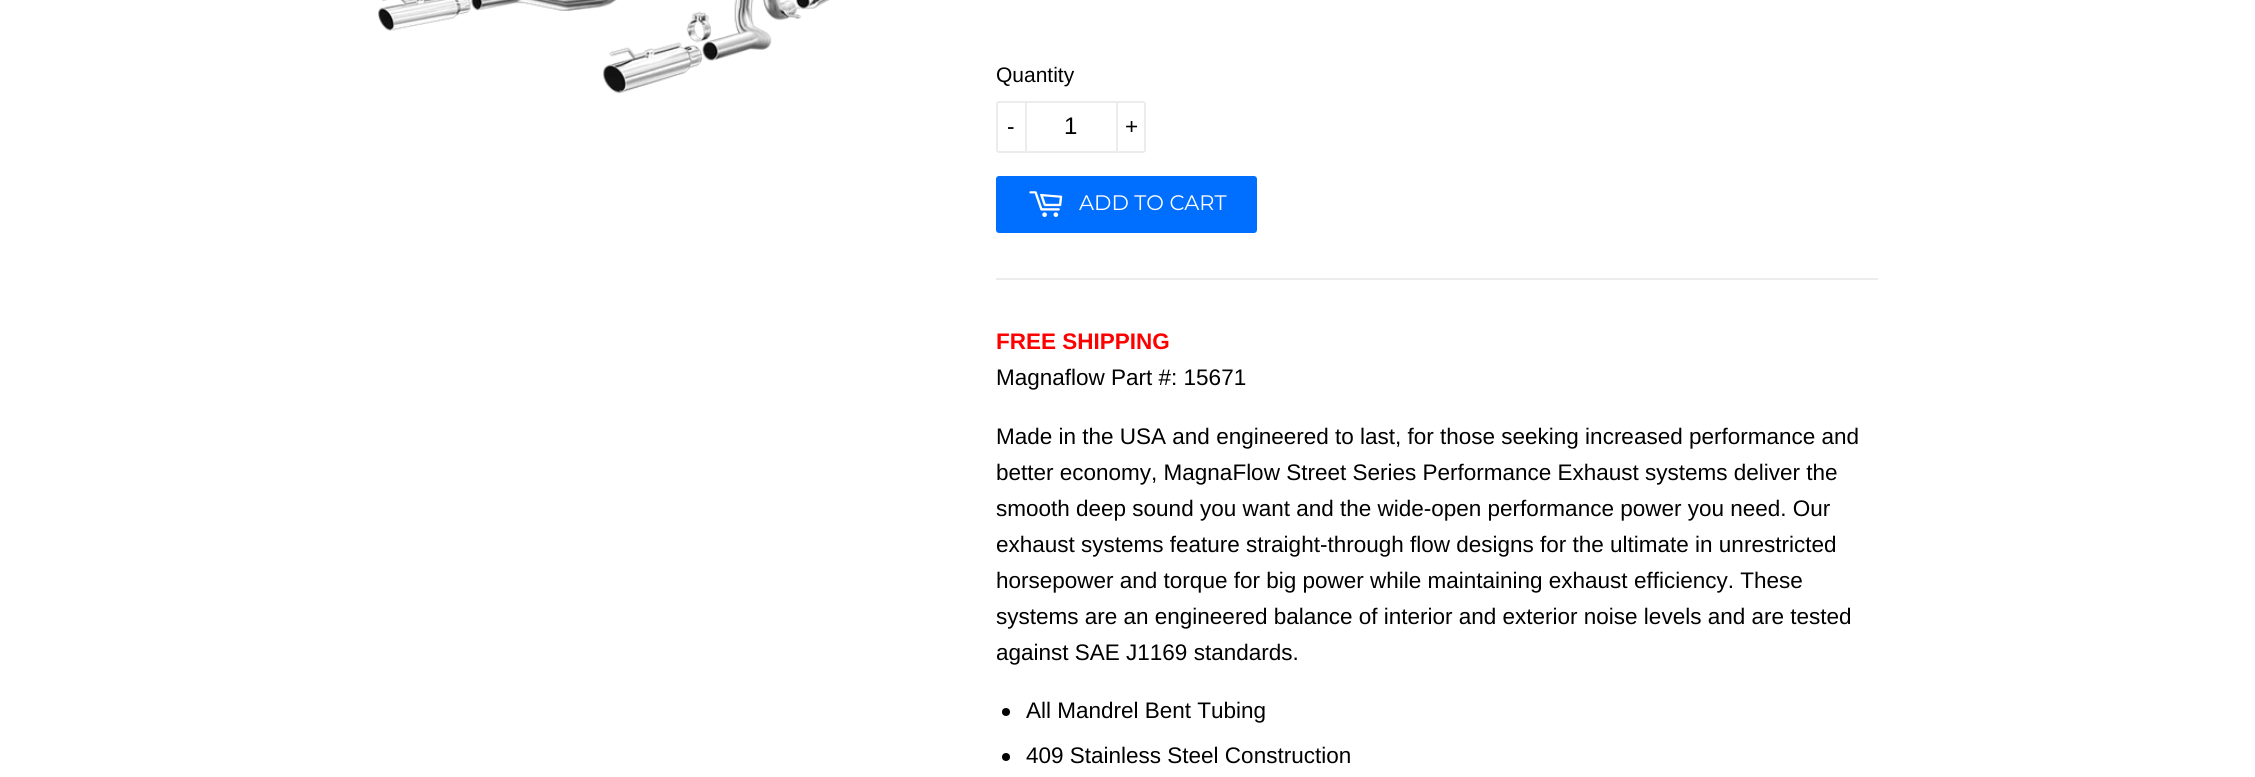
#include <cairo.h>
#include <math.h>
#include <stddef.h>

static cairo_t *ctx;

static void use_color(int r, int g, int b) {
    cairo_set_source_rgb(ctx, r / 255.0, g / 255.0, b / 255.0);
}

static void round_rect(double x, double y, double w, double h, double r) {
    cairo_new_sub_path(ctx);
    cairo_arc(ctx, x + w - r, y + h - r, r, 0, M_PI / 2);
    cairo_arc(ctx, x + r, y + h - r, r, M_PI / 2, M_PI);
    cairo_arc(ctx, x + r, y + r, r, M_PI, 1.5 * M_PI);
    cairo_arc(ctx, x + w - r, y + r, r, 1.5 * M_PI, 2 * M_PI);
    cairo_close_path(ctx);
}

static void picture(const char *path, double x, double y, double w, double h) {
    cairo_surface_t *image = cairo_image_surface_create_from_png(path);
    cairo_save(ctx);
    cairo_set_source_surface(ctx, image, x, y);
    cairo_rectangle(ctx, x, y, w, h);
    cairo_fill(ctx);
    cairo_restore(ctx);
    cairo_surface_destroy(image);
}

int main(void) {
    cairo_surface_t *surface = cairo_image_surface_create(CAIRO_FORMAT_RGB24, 2255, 777);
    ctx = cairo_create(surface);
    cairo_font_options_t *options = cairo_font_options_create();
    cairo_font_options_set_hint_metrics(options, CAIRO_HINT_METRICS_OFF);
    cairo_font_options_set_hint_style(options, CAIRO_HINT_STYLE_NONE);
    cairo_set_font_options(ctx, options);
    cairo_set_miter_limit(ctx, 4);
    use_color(255, 255, 255);
    cairo_paint(ctx);
    picture("img1.png", 378, 0, 452, 94);
    cairo_select_font_face(ctx, "Liberation Sans", CAIRO_FONT_SLANT_NORMAL, CAIRO_FONT_WEIGHT_NORMAL);
    cairo_set_font_size(ctx, 21);
    use_color(0, 0, 0);
    cairo_move_to(ctx, 996, 82);
    cairo_show_text(ctx, "Quantity");
    round_rect(997, 102, 148, 50, 2);
    use_color(236, 236, 236);
    cairo_stroke(ctx);
    cairo_rectangle(ctx, 1025, 101, 2, 52);
    cairo_fill(ctx);
    cairo_set_font_size(ctx, 22.5);
    use_color(0, 0, 0);
    cairo_move_to(ctx, 1007, 134);
    cairo_show_text(ctx, "-");
    cairo_set_font_size(ctx, 24);
    cairo_move_to(ctx, 1064, 134);
    cairo_show_text(ctx, "1");
    use_color(236, 236, 236);
    cairo_rectangle(ctx, 1116, 101, 2, 52);
    cairo_fill(ctx);
    cairo_set_font_size(ctx, 22.5);
    use_color(0, 0, 0);
    cairo_move_to(ctx, 1125, 134);
    cairo_show_text(ctx, "+");
    use_color(0, 110, 255);
    round_rect(996, 176, 261, 57, 3);
    cairo_fill(ctx);
    picture("img2.png", 1029, 191, 34, 26);
    cairo_select_font_face(ctx, "Montserrat Thin", CAIRO_FONT_SLANT_NORMAL, CAIRO_FONT_WEIGHT_NORMAL);
    cairo_set_font_size(ctx, 21);
    use_color(255, 255, 255);
    cairo_move_to(ctx, 1079, 210);
    cairo_show_text(ctx, "ADD TO CART");
    use_color(236, 236, 236);
    cairo_rectangle(ctx, 996, 278, 882, 2);
    cairo_fill(ctx);
    cairo_select_font_face(ctx, "Liberation Sans", CAIRO_FONT_SLANT_NORMAL, CAIRO_FONT_WEIGHT_BOLD);
    cairo_set_font_size(ctx, 22.5);
    use_color(255, 0, 0);
    cairo_move_to(ctx, 996, 349);
    cairo_show_text(ctx, "FREE SHIPPING");
    cairo_select_font_face(ctx, "Liberation Sans", CAIRO_FONT_SLANT_NORMAL, CAIRO_FONT_WEIGHT_NORMAL);
    use_color(0, 0, 0);
    cairo_move_to(ctx, 996, 385);
    cairo_show_text(ctx, "Magnaflow Part #: 15671");
    cairo_move_to(ctx, 996, 444);
    cairo_show_text(ctx, "Made in the USA and engineered to last, for those seeking increased performance and");
    cairo_move_to(ctx, 996, 480);
    cairo_show_text(ctx, "better economy, MagnaFlow Street Series Performance Exhaust systems deliver the");
    cairo_move_to(ctx, 996, 516);
    cairo_show_text(ctx, "smooth deep sound you want and the wide-open performance power you need. Our");
    cairo_move_to(ctx, 996, 552);
    cairo_show_text(ctx, "exhaust systems feature straight-through flow designs for the ultimate in unrestricted");
    cairo_move_to(ctx, 996, 588);
    cairo_show_text(ctx, "horsepower and torque for big power while maintaining exhaust efficiency. These");
    cairo_move_to(ctx, 996, 624);
    cairo_show_text(ctx, "systems are an engineered balance of interior and exterior noise levels and are tested");
    cairo_move_to(ctx, 996, 660);
    cairo_show_text(ctx, "against SAE J1169 standards.");
    cairo_new_path(ctx);
    cairo_arc(ctx, 1006, 712, 4, 0, 2 * M_PI);
    cairo_fill(ctx);
    cairo_move_to(ctx, 1026, 718);
    cairo_show_text(ctx, "All Mandrel Bent Tubing");
    cairo_new_path(ctx);
    cairo_arc(ctx, 1006, 757, 4, 0, 2 * M_PI);
    cairo_fill(ctx);
    cairo_move_to(ctx, 1026, 763);
    cairo_show_text(ctx, "409 Stainless Steel Construction");
    cairo_surface_write_to_png(surface, "result.png");
    cairo_font_options_destroy(options);
    cairo_destroy(ctx);
    cairo_surface_destroy(surface);
    return 0;
}
